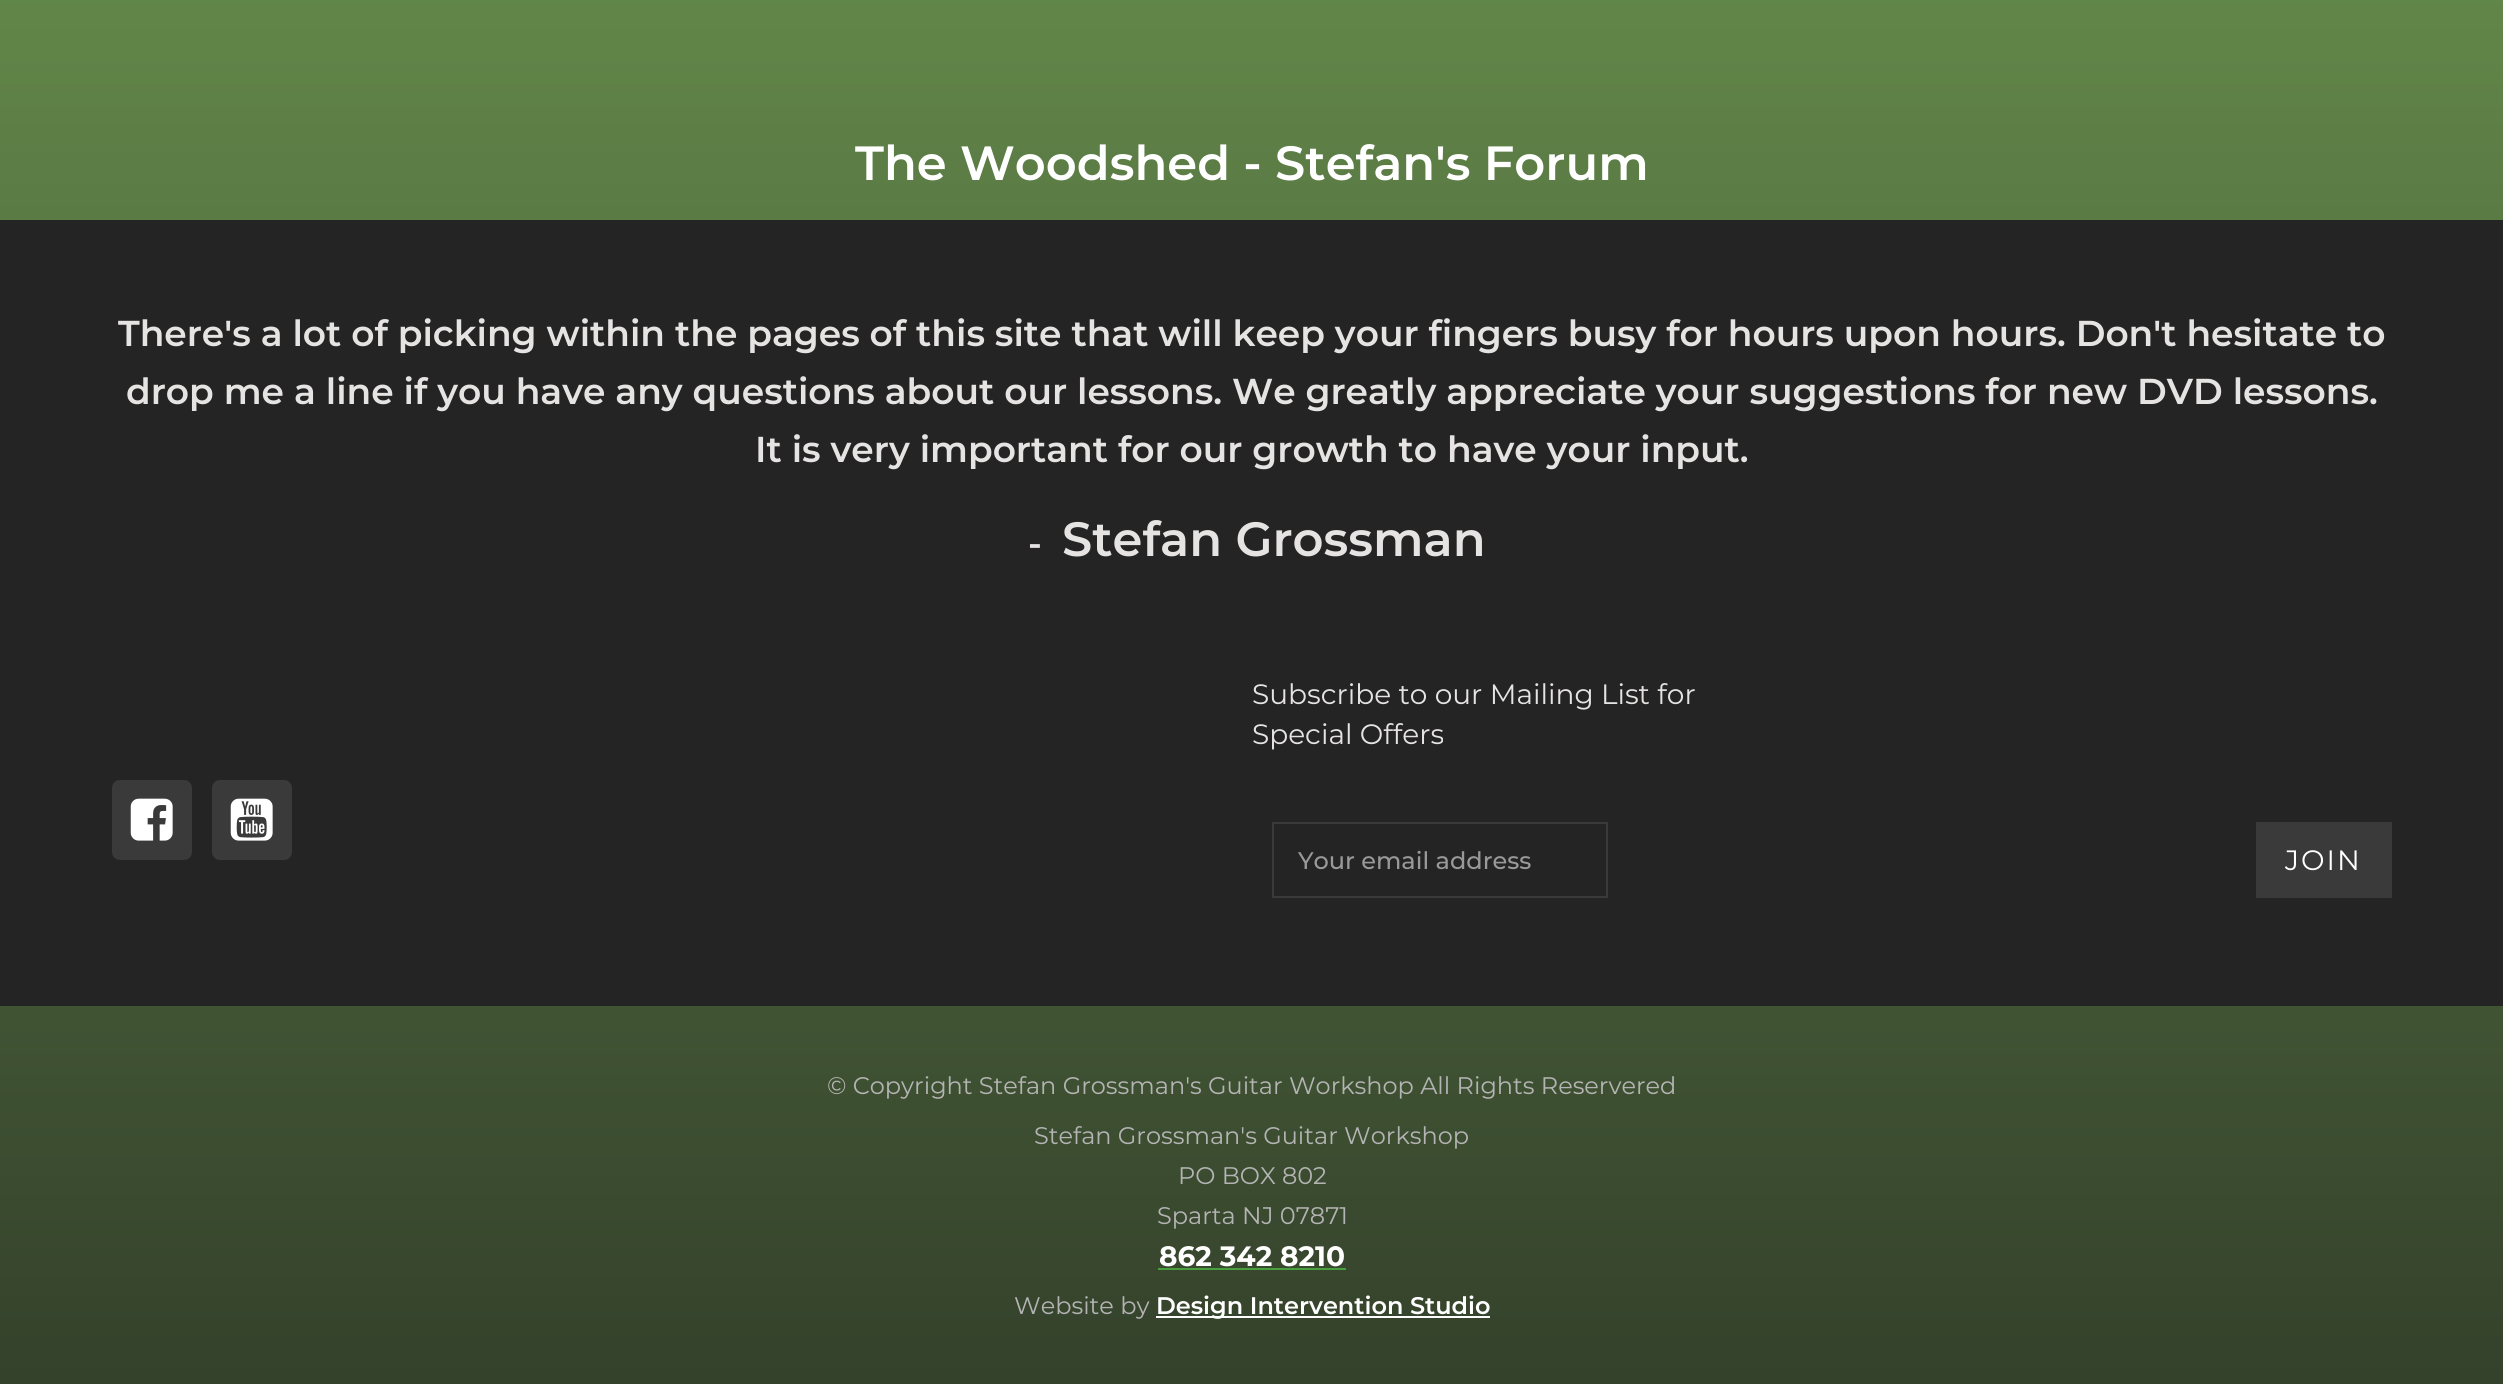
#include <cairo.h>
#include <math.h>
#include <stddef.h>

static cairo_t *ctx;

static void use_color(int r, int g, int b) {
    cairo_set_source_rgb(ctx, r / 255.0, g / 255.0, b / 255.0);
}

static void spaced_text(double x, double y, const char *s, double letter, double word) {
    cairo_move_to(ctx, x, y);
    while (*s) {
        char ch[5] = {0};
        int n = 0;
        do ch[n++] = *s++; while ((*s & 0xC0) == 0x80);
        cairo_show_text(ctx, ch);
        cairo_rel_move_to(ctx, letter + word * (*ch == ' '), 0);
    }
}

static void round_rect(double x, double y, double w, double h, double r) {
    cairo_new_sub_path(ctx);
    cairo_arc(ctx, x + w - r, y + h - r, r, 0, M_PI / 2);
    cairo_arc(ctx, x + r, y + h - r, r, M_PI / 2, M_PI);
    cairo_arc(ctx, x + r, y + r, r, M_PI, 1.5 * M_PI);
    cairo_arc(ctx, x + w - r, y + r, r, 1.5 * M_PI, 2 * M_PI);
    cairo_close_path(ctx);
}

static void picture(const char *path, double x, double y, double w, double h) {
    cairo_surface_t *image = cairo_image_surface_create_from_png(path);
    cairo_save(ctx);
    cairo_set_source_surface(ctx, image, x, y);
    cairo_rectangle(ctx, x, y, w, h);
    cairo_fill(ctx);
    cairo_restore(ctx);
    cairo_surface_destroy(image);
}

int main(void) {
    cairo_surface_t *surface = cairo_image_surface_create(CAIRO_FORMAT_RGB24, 2503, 1384);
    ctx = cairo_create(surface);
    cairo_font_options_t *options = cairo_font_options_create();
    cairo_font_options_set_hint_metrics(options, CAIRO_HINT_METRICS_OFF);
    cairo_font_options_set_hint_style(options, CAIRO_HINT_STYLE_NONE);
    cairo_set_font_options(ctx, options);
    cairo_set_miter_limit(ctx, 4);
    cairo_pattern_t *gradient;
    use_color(255, 255, 255);
    cairo_paint(ctx);
    gradient = cairo_pattern_create_linear(1252, -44, 1252, 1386);
    cairo_pattern_add_color_stop_rgba(gradient, 0, 0.388, 0.533, 0.29, 1);
    cairo_pattern_add_color_stop_rgba(gradient, 1, 0.204, 0.255, 0.169, 1);
    cairo_set_source(ctx, gradient);
    cairo_pattern_destroy(gradient);
    cairo_rectangle(ctx, 0, 0, 2503, 1384);
    cairo_fill(ctx);
    cairo_select_font_face(ctx, "Montserrat SemiBold", CAIRO_FONT_SLANT_NORMAL, CAIRO_FONT_WEIGHT_NORMAL);
    cairo_set_font_size(ctx, 48);
    use_color(255, 255, 255);
    cairo_move_to(ctx, 855, 180);
    cairo_show_text(ctx, "The Woodshed - Stefan's Forum");
    use_color(36, 36, 36);
    cairo_rectangle(ctx, 0, 220, 2503, 786);
    cairo_fill(ctx);
    cairo_set_font_size(ctx, 36);
    use_color(230, 227, 227);
    cairo_move_to(ctx, 118, 346);
    cairo_show_text(ctx, "There's a lot of picking within the pages of this site that will keep your fingers busy for hours upon hours. Don't hesitate to");
    cairo_move_to(ctx, 126, 404);
    cairo_show_text(ctx, "drop me a line if you have any questions about our lessons. We greatly appreciate your suggestions for new DVD lessons.");
    cairo_move_to(ctx, 755, 462);
    cairo_show_text(ctx, "It is very important for our growth to have your input.");
    cairo_move_to(ctx, 1028, 556);
    cairo_show_text(ctx, "-");
    cairo_set_font_size(ctx, 48);
    cairo_move_to(ctx, 1062, 556);
    cairo_show_text(ctx, "Stefan Grossman");
    use_color(58, 58, 58);
    round_rect(112, 780, 80, 80, 8);
    cairo_fill(ctx);
    picture("img1.png", 130, 798, 43, 43);
    round_rect(212, 780, 80, 80, 8);
    cairo_fill(ctx);
    picture("img2.png", 230, 798, 43, 43);
    cairo_select_font_face(ctx, "Montserrat", CAIRO_FONT_SLANT_NORMAL, CAIRO_FONT_WEIGHT_NORMAL);
    cairo_set_font_size(ctx, 28);
    use_color(230, 227, 227);
    cairo_move_to(ctx, 1252, 704);
    cairo_show_text(ctx, "Subscribe to our Mailing List for");
    cairo_move_to(ctx, 1252, 744);
    cairo_show_text(ctx, "Special Offers");
    cairo_rectangle(ctx, 1273, 823, 334, 74);
    use_color(58, 58, 58);
    cairo_stroke(ctx);
    cairo_select_font_face(ctx, "Montserrat Medium", CAIRO_FONT_SLANT_NORMAL, CAIRO_FONT_WEIGHT_NORMAL);
    cairo_set_font_size(ctx, 24);
    use_color(153, 153, 153);
    cairo_move_to(ctx, 1298, 869);
    cairo_show_text(ctx, "Your email address");
    use_color(58, 58, 58);
    cairo_rectangle(ctx, 2256, 822, 136, 76);
    cairo_fill(ctx);
    cairo_select_font_face(ctx, "Montserrat", CAIRO_FONT_SLANT_NORMAL, CAIRO_FONT_WEIGHT_NORMAL);
    cairo_set_font_size(ctx, 28);
    use_color(255, 255, 255);
    spaced_text(2285, 870, "JOIN", 2, 0);
    cairo_set_font_size(ctx, 24);
    use_color(180, 180, 180);
    cairo_move_to(ctx, 827, 1094);
    cairo_show_text(ctx, "© Copyright Stefan Grossman's Guitar Workshop All Rights Reservered");
    cairo_move_to(ctx, 1034, 1144);
    cairo_show_text(ctx, "Stefan Grossman's Guitar Workshop");
    cairo_move_to(ctx, 1178, 1184);
    cairo_show_text(ctx, "PO BOX 802");
    cairo_move_to(ctx, 1157, 1224);
    cairo_show_text(ctx, "Sparta NJ 07871");
    cairo_select_font_face(ctx, "Montserrat", CAIRO_FONT_SLANT_NORMAL, CAIRO_FONT_WEIGHT_BOLD);
    cairo_set_font_size(ctx, 28);
    use_color(255, 255, 255);
    cairo_move_to(ctx, 1159, 1266);
    cairo_show_text(ctx, "862 342 8210");
    use_color(73, 158, 62);
    cairo_rectangle(ctx, 1158, 1268, 188, 2);
    cairo_fill(ctx);
    cairo_select_font_face(ctx, "Montserrat", CAIRO_FONT_SLANT_NORMAL, CAIRO_FONT_WEIGHT_NORMAL);
    cairo_set_font_size(ctx, 24);
    use_color(180, 180, 180);
    cairo_move_to(ctx, 1014, 1314);
    cairo_show_text(ctx, "Website by");
    use_color(255, 255, 255);
    cairo_rectangle(ctx, 1156, 1316, 334, 2);
    cairo_fill(ctx);
    cairo_select_font_face(ctx, "Montserrat SemiBold", CAIRO_FONT_SLANT_NORMAL, CAIRO_FONT_WEIGHT_NORMAL);
    cairo_move_to(ctx, 1156, 1314);
    cairo_show_text(ctx, "Design Intervention Studio");
    cairo_surface_write_to_png(surface, "result.png");
    cairo_font_options_destroy(options);
    cairo_destroy(ctx);
    cairo_surface_destroy(surface);
    return 0;
}
